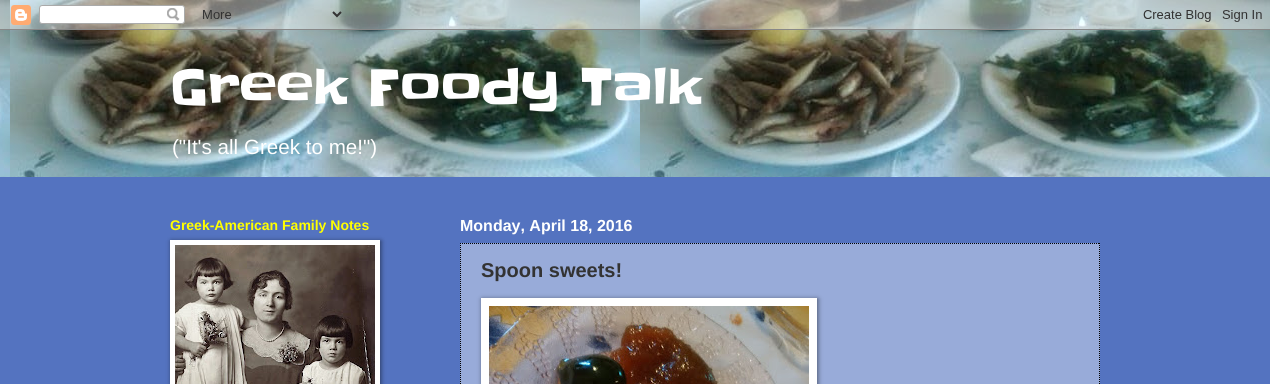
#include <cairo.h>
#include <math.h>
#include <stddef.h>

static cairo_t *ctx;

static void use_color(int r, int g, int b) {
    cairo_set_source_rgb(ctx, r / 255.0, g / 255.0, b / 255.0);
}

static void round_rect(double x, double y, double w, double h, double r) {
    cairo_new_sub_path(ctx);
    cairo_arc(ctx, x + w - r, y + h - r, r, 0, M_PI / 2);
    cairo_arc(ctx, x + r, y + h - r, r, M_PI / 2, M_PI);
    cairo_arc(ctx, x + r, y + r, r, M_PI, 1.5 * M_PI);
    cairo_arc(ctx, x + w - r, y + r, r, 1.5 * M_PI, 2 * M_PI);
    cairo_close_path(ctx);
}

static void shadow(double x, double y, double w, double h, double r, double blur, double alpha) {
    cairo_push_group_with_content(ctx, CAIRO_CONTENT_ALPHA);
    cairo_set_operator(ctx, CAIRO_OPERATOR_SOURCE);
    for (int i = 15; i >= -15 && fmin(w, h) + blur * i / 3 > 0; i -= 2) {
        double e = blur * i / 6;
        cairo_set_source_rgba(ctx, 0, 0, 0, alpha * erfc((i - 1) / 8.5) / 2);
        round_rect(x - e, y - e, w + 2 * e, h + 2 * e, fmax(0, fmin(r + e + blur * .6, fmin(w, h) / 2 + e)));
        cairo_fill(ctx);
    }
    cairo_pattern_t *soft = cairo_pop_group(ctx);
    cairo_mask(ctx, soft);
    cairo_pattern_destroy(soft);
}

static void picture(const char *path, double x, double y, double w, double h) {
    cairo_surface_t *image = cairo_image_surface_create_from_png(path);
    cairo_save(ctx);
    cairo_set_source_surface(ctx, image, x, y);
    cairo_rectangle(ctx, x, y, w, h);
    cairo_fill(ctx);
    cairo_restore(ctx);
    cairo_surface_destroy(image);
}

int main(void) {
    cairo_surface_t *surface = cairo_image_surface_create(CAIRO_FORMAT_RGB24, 1270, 384);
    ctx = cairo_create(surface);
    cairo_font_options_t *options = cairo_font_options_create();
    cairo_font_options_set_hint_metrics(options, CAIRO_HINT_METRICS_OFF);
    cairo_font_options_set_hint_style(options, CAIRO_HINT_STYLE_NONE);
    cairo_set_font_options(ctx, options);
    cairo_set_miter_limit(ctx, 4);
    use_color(84, 115, 192);
    cairo_paint(ctx);
    picture("img1.png", 0, 0, 1270, 177);
    picture("img2.png", 0, 0, 1270, 30);
    cairo_select_font_face(ctx, "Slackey", CAIRO_FONT_SLANT_NORMAL, CAIRO_FONT_WEIGHT_NORMAL);
    cairo_set_font_size(ctx, 50);
    use_color(255, 255, 255);
    cairo_move_to(ctx, 170, 105);
    cairo_show_text(ctx, "Greek Foody Talk");
    cairo_select_font_face(ctx, "Liberation Sans", CAIRO_FONT_SLANT_NORMAL, CAIRO_FONT_WEIGHT_NORMAL);
    cairo_set_font_size(ctx, 20.6);
    cairo_move_to(ctx, 172, 154);
    cairo_show_text(ctx, "(\"It's all Greek to me!\")");
    cairo_select_font_face(ctx, "Liberation Sans", CAIRO_FONT_SLANT_NORMAL, CAIRO_FONT_WEIGHT_BOLD);
    cairo_set_font_size(ctx, 14);
    use_color(255, 255, 0);
    cairo_move_to(ctx, 170, 230);
    cairo_show_text(ctx, "Greek-American Family Notes");
    use_color(0, 0, 0);
    shadow(171, 241, 210, 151, 0, 2.5, 0.5);
    use_color(255, 255, 255);
    cairo_rectangle(ctx, 170, 240, 210, 144);
    cairo_fill(ctx);
    picture("img3.png", 175, 245, 200, 139);
    cairo_set_font_size(ctx, 16);
    cairo_move_to(ctx, 460, 231);
    cairo_show_text(ctx, "Monday, April 18, 2016");
    use_color(152, 171, 217);
    cairo_rectangle(ctx, 460, 243, 640, 141);
    cairo_fill(ctx);
    cairo_new_path(ctx);
    cairo_move_to(ctx, 460, 243.5);
    cairo_line_to(ctx, 1100, 243.5);
    use_color(0, 0, 0);
    cairo_set_line_width(ctx, 1);
    cairo_set_dash(ctx, (double[]){1, 1}, 2, 0);
    cairo_stroke(ctx);
    cairo_new_path(ctx);
    cairo_move_to(ctx, 1099.5, 243);
    cairo_line_to(ctx, 1099.5, 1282);
    cairo_stroke(ctx);
    cairo_new_path(ctx);
    cairo_move_to(ctx, 460.5, 243);
    cairo_line_to(ctx, 460.5, 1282);
    cairo_stroke(ctx);
    cairo_set_font_size(ctx, 20);
    use_color(51, 51, 51);
    cairo_move_to(ctx, 481, 277);
    cairo_show_text(ctx, "Spoon sweets!");
    use_color(0, 0, 0);
    shadow(482, 299, 336, 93, 0, 2.5, 0.5);
    use_color(255, 255, 255);
    cairo_rectangle(ctx, 481, 298, 336, 86);
    cairo_fill(ctx);
    picture("img4.png", 489, 306, 320, 78);
    cairo_surface_write_to_png(surface, "result.png");
    cairo_font_options_destroy(options);
    cairo_destroy(ctx);
    cairo_surface_destroy(surface);
    return 0;
}
